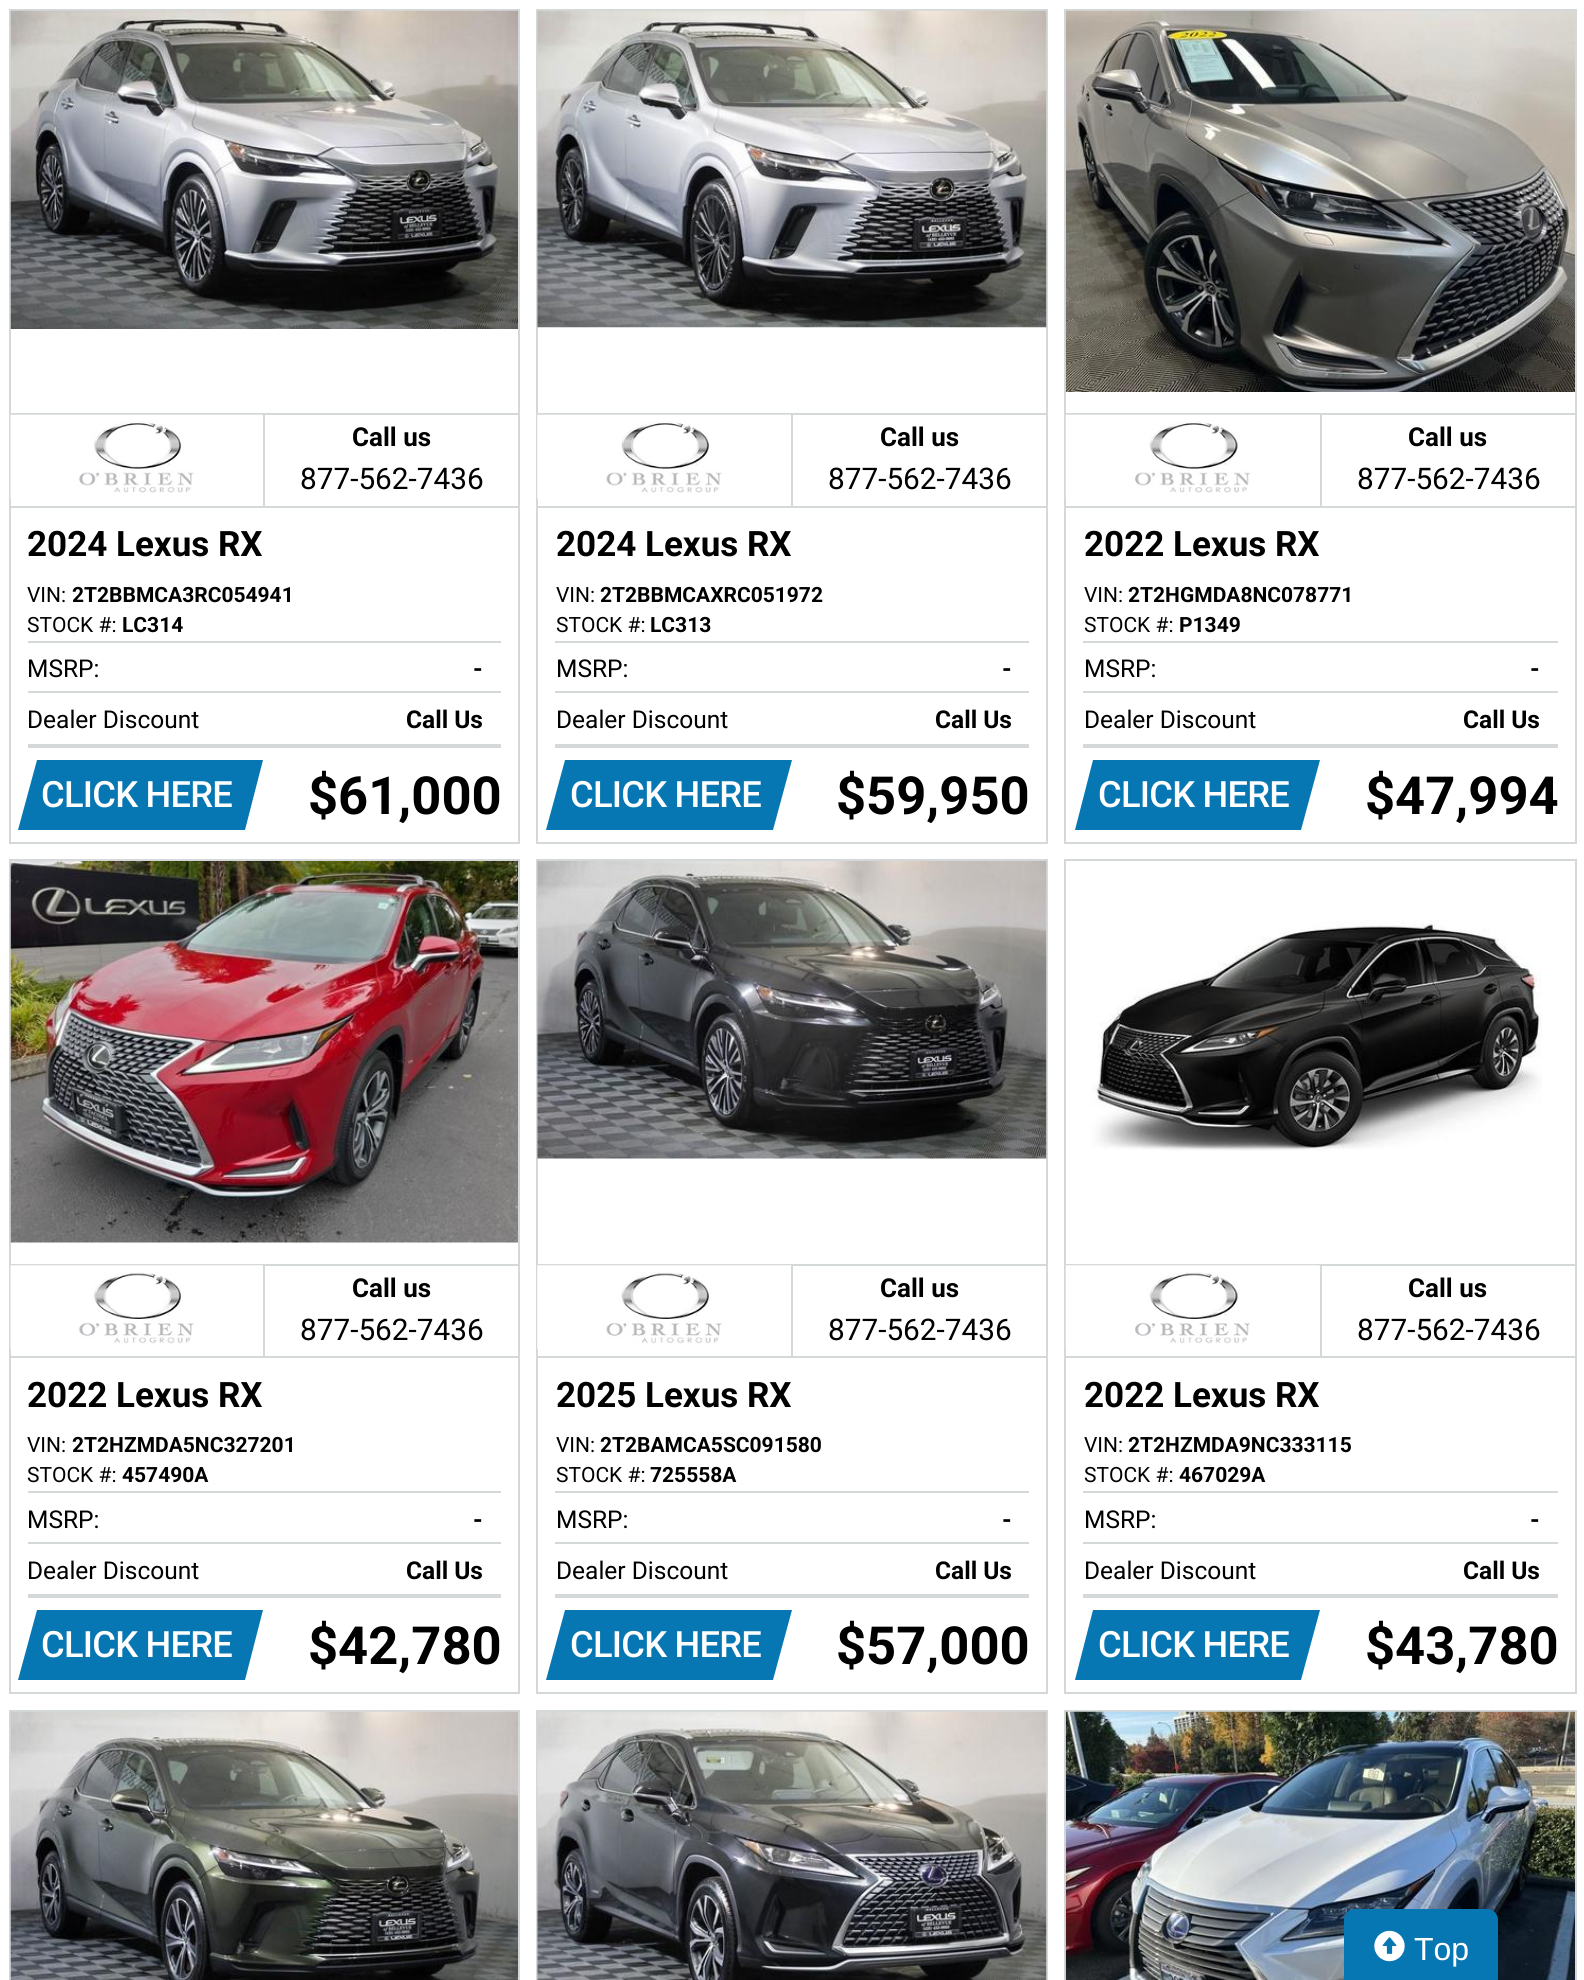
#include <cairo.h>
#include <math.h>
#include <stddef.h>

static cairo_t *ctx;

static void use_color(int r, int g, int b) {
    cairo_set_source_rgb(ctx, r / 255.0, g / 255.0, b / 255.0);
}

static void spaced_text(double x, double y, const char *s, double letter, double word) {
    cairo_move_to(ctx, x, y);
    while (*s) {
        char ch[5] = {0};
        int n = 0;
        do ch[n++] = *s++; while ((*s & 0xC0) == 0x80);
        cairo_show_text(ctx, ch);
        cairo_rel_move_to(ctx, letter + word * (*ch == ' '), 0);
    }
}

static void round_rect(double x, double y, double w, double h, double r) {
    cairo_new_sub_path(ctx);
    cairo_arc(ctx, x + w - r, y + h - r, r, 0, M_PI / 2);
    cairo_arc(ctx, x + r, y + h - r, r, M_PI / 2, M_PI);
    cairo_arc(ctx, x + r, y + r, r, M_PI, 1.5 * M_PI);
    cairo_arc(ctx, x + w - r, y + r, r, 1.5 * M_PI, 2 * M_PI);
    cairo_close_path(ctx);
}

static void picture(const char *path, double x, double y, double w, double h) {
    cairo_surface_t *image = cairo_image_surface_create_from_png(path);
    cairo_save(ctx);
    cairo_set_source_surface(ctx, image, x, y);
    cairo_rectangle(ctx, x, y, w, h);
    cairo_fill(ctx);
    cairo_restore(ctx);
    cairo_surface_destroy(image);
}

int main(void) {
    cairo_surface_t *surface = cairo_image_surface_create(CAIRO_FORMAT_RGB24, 1584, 1980);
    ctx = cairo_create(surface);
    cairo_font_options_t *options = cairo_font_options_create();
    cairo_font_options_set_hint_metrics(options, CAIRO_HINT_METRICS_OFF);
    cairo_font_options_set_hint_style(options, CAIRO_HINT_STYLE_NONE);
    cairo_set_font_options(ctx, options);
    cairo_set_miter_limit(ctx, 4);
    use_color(255, 255, 255);
    cairo_paint(ctx);
    cairo_rectangle(ctx, 10, 10, 509, 833);
    use_color(212, 216, 217);
    cairo_stroke(ctx);
    picture("img1.png", 10, 10, 508, 319);
    cairo_rectangle(ctx, 11, 413, 253, 2);
    cairo_fill(ctx);
    cairo_rectangle(ctx, 263, 413, 2, 95);
    cairo_fill(ctx);
    cairo_rectangle(ctx, 11, 506, 507, 2);
    cairo_fill(ctx);
    picture("img2.png", 10, 414, 253, 85);
    cairo_rectangle(ctx, 264, 413, 254, 2);
    cairo_fill(ctx);
    cairo_select_font_face(ctx, "Roboto", CAIRO_FONT_SLANT_NORMAL, CAIRO_FONT_WEIGHT_BOLD);
    cairo_set_font_size(ctx, 26);
    use_color(0, 0, 0);
    cairo_move_to(ctx, 352, 446);
    cairo_show_text(ctx, "Call us");
    cairo_select_font_face(ctx, "Roboto", CAIRO_FONT_SLANT_NORMAL, CAIRO_FONT_WEIGHT_NORMAL);
    cairo_set_font_size(ctx, 29.75);
    cairo_move_to(ctx, 300, 489);
    cairo_show_text(ctx, "877-562-7436");
    cairo_select_font_face(ctx, "Roboto", CAIRO_FONT_SLANT_NORMAL, CAIRO_FONT_WEIGHT_BOLD);
    cairo_set_font_size(ctx, 35);
    cairo_move_to(ctx, 27, 556);
    cairo_show_text(ctx, "2024 Lexus RX");
    cairo_select_font_face(ctx, "Roboto", CAIRO_FONT_SLANT_NORMAL, CAIRO_FONT_WEIGHT_NORMAL);
    cairo_set_font_size(ctx, 21);
    cairo_move_to(ctx, 27, 602);
    cairo_show_text(ctx, "VIN:");
    cairo_select_font_face(ctx, "Roboto", CAIRO_FONT_SLANT_NORMAL, CAIRO_FONT_WEIGHT_BOLD);
    cairo_move_to(ctx, 72, 602);
    cairo_show_text(ctx, "2T2BBMCA3RC054941");
    cairo_select_font_face(ctx, "Roboto", CAIRO_FONT_SLANT_NORMAL, CAIRO_FONT_WEIGHT_NORMAL);
    cairo_move_to(ctx, 27, 632);
    cairo_show_text(ctx, "STOCK #:");
    cairo_select_font_face(ctx, "Roboto", CAIRO_FONT_SLANT_NORMAL, CAIRO_FONT_WEIGHT_BOLD);
    cairo_move_to(ctx, 122, 632);
    cairo_show_text(ctx, "LC314");
    use_color(212, 216, 217);
    cairo_rectangle(ctx, 28, 641, 473, 2);
    cairo_fill(ctx);
    cairo_rectangle(ctx, 28, 691, 473, 2);
    cairo_fill(ctx);
    cairo_select_font_face(ctx, "Roboto", CAIRO_FONT_SLANT_NORMAL, CAIRO_FONT_WEIGHT_NORMAL);
    cairo_set_font_size(ctx, 24.5);
    use_color(0, 0, 0);
    cairo_move_to(ctx, 27, 677);
    cairo_show_text(ctx, "MSRP:");
    cairo_select_font_face(ctx, "Roboto", CAIRO_FONT_SLANT_NORMAL, CAIRO_FONT_WEIGHT_BOLD);
    cairo_move_to(ctx, 473, 677);
    cairo_show_text(ctx, "-");
    use_color(212, 216, 217);
    cairo_rectangle(ctx, 28, 744, 473, 4);
    cairo_fill(ctx);
    cairo_select_font_face(ctx, "Roboto", CAIRO_FONT_SLANT_NORMAL, CAIRO_FONT_WEIGHT_NORMAL);
    use_color(0, 0, 0);
    cairo_move_to(ctx, 27, 728);
    cairo_show_text(ctx, "Dealer Discount");
    cairo_select_font_face(ctx, "Roboto", CAIRO_FONT_SLANT_NORMAL, CAIRO_FONT_WEIGHT_BOLD);
    cairo_move_to(ctx, 406, 728);
    cairo_show_text(ctx, "Call Us");
    use_color(7, 119, 179);
    cairo_new_path(ctx);
    cairo_move_to(ctx, 37, 760);
    cairo_line_to(ctx, 263, 760);
    cairo_line_to(ctx, 245, 830);
    cairo_line_to(ctx, 18, 830);
    cairo_close_path(ctx);
    cairo_fill(ctx);
    cairo_select_font_face(ctx, "Roboto Medium", CAIRO_FONT_SLANT_NORMAL, CAIRO_FONT_WEIGHT_NORMAL);
    cairo_set_font_size(ctx, 36.25);
    use_color(255, 255, 255);
    spaced_text(41, 807, "CLICK HERE", -0.75, 0);
    cairo_select_font_face(ctx, "Roboto", CAIRO_FONT_SLANT_NORMAL, CAIRO_FONT_WEIGHT_BOLD);
    cairo_set_font_size(ctx, 52.5);
    use_color(0, 0, 0);
    cairo_move_to(ctx, 308, 814);
    cairo_show_text(ctx, "$61,000");
    cairo_rectangle(ctx, 537, 10, 510, 833);
    use_color(212, 216, 217);
    cairo_stroke(ctx);
    picture("img3.png", 537, 10, 510, 318);
    cairo_rectangle(ctx, 537, 413, 510, 2);
    cairo_fill(ctx);
    cairo_rectangle(ctx, 791, 413, 2, 95);
    cairo_fill(ctx);
    cairo_rectangle(ctx, 537, 506, 510, 2);
    cairo_fill(ctx);
    picture("img4.png", 537, 414, 254, 85);
    cairo_set_font_size(ctx, 26);
    use_color(0, 0, 0);
    cairo_move_to(ctx, 880, 446);
    cairo_show_text(ctx, "Call us");
    cairo_select_font_face(ctx, "Roboto", CAIRO_FONT_SLANT_NORMAL, CAIRO_FONT_WEIGHT_NORMAL);
    cairo_set_font_size(ctx, 29.75);
    cairo_move_to(ctx, 828, 489);
    cairo_show_text(ctx, "877-562-7436");
    cairo_select_font_face(ctx, "Roboto", CAIRO_FONT_SLANT_NORMAL, CAIRO_FONT_WEIGHT_BOLD);
    cairo_set_font_size(ctx, 35);
    cairo_move_to(ctx, 556, 556);
    cairo_show_text(ctx, "2024 Lexus RX");
    cairo_select_font_face(ctx, "Roboto", CAIRO_FONT_SLANT_NORMAL, CAIRO_FONT_WEIGHT_NORMAL);
    cairo_set_font_size(ctx, 21);
    cairo_move_to(ctx, 556, 602);
    cairo_show_text(ctx, "VIN:");
    cairo_select_font_face(ctx, "Roboto", CAIRO_FONT_SLANT_NORMAL, CAIRO_FONT_WEIGHT_BOLD);
    cairo_move_to(ctx, 600, 602);
    cairo_show_text(ctx, "2T2BBMCAXRC051972");
    cairo_select_font_face(ctx, "Roboto", CAIRO_FONT_SLANT_NORMAL, CAIRO_FONT_WEIGHT_NORMAL);
    cairo_move_to(ctx, 556, 632);
    cairo_show_text(ctx, "STOCK #:");
    cairo_select_font_face(ctx, "Roboto", CAIRO_FONT_SLANT_NORMAL, CAIRO_FONT_WEIGHT_BOLD);
    cairo_move_to(ctx, 650, 632);
    cairo_show_text(ctx, "LC313");
    use_color(212, 216, 217);
    cairo_rectangle(ctx, 555, 641, 474, 2);
    cairo_fill(ctx);
    cairo_rectangle(ctx, 555, 691, 474, 2);
    cairo_fill(ctx);
    cairo_select_font_face(ctx, "Roboto", CAIRO_FONT_SLANT_NORMAL, CAIRO_FONT_WEIGHT_NORMAL);
    cairo_set_font_size(ctx, 24.5);
    use_color(0, 0, 0);
    cairo_move_to(ctx, 556, 677);
    cairo_show_text(ctx, "MSRP:");
    cairo_select_font_face(ctx, "Roboto", CAIRO_FONT_SLANT_NORMAL, CAIRO_FONT_WEIGHT_BOLD);
    cairo_move_to(ctx, 1002, 677);
    cairo_show_text(ctx, "-");
    use_color(212, 216, 217);
    cairo_rectangle(ctx, 555, 744, 474, 4);
    cairo_fill(ctx);
    cairo_select_font_face(ctx, "Roboto", CAIRO_FONT_SLANT_NORMAL, CAIRO_FONT_WEIGHT_NORMAL);
    use_color(0, 0, 0);
    cairo_move_to(ctx, 556, 728);
    cairo_show_text(ctx, "Dealer Discount");
    cairo_select_font_face(ctx, "Roboto", CAIRO_FONT_SLANT_NORMAL, CAIRO_FONT_WEIGHT_BOLD);
    cairo_move_to(ctx, 935, 728);
    cairo_show_text(ctx, "Call Us");
    use_color(7, 119, 179);
    cairo_new_path(ctx);
    cairo_move_to(ctx, 565, 760);
    cairo_line_to(ctx, 792, 760);
    cairo_line_to(ctx, 773, 830);
    cairo_line_to(ctx, 546, 830);
    cairo_close_path(ctx);
    cairo_fill(ctx);
    cairo_select_font_face(ctx, "Roboto Medium", CAIRO_FONT_SLANT_NORMAL, CAIRO_FONT_WEIGHT_NORMAL);
    cairo_set_font_size(ctx, 36.25);
    use_color(255, 255, 255);
    spaced_text(570, 807, "CLICK HERE", -0.75, 0);
    cairo_select_font_face(ctx, "Roboto", CAIRO_FONT_SLANT_NORMAL, CAIRO_FONT_WEIGHT_BOLD);
    cairo_set_font_size(ctx, 52.5);
    use_color(0, 0, 0);
    cairo_move_to(ctx, 836, 814);
    cairo_show_text(ctx, "$59,950");
    cairo_rectangle(ctx, 1065, 10, 511, 833);
    use_color(212, 216, 217);
    cairo_stroke(ctx);
    picture("img5.png", 1065, 10, 510, 382);
    cairo_rectangle(ctx, 1066, 413, 255, 2);
    cairo_fill(ctx);
    cairo_rectangle(ctx, 1320, 413, 2, 95);
    cairo_fill(ctx);
    cairo_rectangle(ctx, 1066, 506, 509, 2);
    cairo_fill(ctx);
    picture("img6.png", 1065, 414, 255, 85);
    cairo_rectangle(ctx, 1321, 413, 254, 2);
    cairo_fill(ctx);
    cairo_set_font_size(ctx, 26);
    use_color(0, 0, 0);
    cairo_move_to(ctx, 1408, 446);
    cairo_show_text(ctx, "Call us");
    cairo_select_font_face(ctx, "Roboto", CAIRO_FONT_SLANT_NORMAL, CAIRO_FONT_WEIGHT_NORMAL);
    cairo_set_font_size(ctx, 29.75);
    cairo_move_to(ctx, 1357, 489);
    cairo_show_text(ctx, "877-562-7436");
    cairo_select_font_face(ctx, "Roboto", CAIRO_FONT_SLANT_NORMAL, CAIRO_FONT_WEIGHT_BOLD);
    cairo_set_font_size(ctx, 35);
    cairo_move_to(ctx, 1084, 556);
    cairo_show_text(ctx, "2022 Lexus RX");
    cairo_select_font_face(ctx, "Roboto", CAIRO_FONT_SLANT_NORMAL, CAIRO_FONT_WEIGHT_NORMAL);
    cairo_set_font_size(ctx, 21);
    cairo_move_to(ctx, 1084, 602);
    cairo_show_text(ctx, "VIN:");
    cairo_select_font_face(ctx, "Roboto", CAIRO_FONT_SLANT_NORMAL, CAIRO_FONT_WEIGHT_BOLD);
    cairo_move_to(ctx, 1128, 602);
    cairo_show_text(ctx, "2T2HGMDA8NC078771");
    cairo_select_font_face(ctx, "Roboto", CAIRO_FONT_SLANT_NORMAL, CAIRO_FONT_WEIGHT_NORMAL);
    cairo_move_to(ctx, 1084, 632);
    cairo_show_text(ctx, "STOCK #:");
    cairo_select_font_face(ctx, "Roboto", CAIRO_FONT_SLANT_NORMAL, CAIRO_FONT_WEIGHT_BOLD);
    cairo_move_to(ctx, 1179, 632);
    cairo_show_text(ctx, "P1349");
    use_color(212, 216, 217);
    cairo_rectangle(ctx, 1083, 641, 475, 2);
    cairo_fill(ctx);
    cairo_rectangle(ctx, 1083, 691, 475, 2);
    cairo_fill(ctx);
    cairo_select_font_face(ctx, "Roboto", CAIRO_FONT_SLANT_NORMAL, CAIRO_FONT_WEIGHT_NORMAL);
    cairo_set_font_size(ctx, 24.5);
    use_color(0, 0, 0);
    cairo_move_to(ctx, 1084, 677);
    cairo_show_text(ctx, "MSRP:");
    cairo_select_font_face(ctx, "Roboto", CAIRO_FONT_SLANT_NORMAL, CAIRO_FONT_WEIGHT_BOLD);
    cairo_move_to(ctx, 1530, 677);
    cairo_show_text(ctx, "-");
    use_color(212, 216, 217);
    cairo_rectangle(ctx, 1083, 744, 475, 4);
    cairo_fill(ctx);
    cairo_select_font_face(ctx, "Roboto", CAIRO_FONT_SLANT_NORMAL, CAIRO_FONT_WEIGHT_NORMAL);
    use_color(0, 0, 0);
    cairo_move_to(ctx, 1084, 728);
    cairo_show_text(ctx, "Dealer Discount");
    cairo_select_font_face(ctx, "Roboto", CAIRO_FONT_SLANT_NORMAL, CAIRO_FONT_WEIGHT_BOLD);
    cairo_move_to(ctx, 1463, 728);
    cairo_show_text(ctx, "Call Us");
    use_color(7, 119, 179);
    cairo_new_path(ctx);
    cairo_move_to(ctx, 1093, 760);
    cairo_line_to(ctx, 1320, 760);
    cairo_line_to(ctx, 1301, 830);
    cairo_line_to(ctx, 1075, 830);
    cairo_close_path(ctx);
    cairo_fill(ctx);
    cairo_select_font_face(ctx, "Roboto Medium", CAIRO_FONT_SLANT_NORMAL, CAIRO_FONT_WEIGHT_NORMAL);
    cairo_set_font_size(ctx, 36.25);
    use_color(255, 255, 255);
    spaced_text(1098, 807, "CLICK HERE", -0.75, 0);
    cairo_select_font_face(ctx, "Roboto", CAIRO_FONT_SLANT_NORMAL, CAIRO_FONT_WEIGHT_BOLD);
    cairo_set_font_size(ctx, 52.5);
    use_color(0, 0, 0);
    cairo_move_to(ctx, 1365, 814);
    cairo_show_text(ctx, "$47,994");
    cairo_rectangle(ctx, 10, 860, 509, 833);
    use_color(212, 216, 217);
    cairo_stroke(ctx);
    picture("img7.png", 10, 861, 508, 382);
    cairo_rectangle(ctx, 11, 1264, 253, 2);
    cairo_fill(ctx);
    cairo_rectangle(ctx, 263, 1264, 2, 94);
    cairo_fill(ctx);
    cairo_rectangle(ctx, 11, 1356, 507, 2);
    cairo_fill(ctx);
    picture("img8.png", 10, 1265, 253, 85);
    cairo_rectangle(ctx, 264, 1264, 254, 2);
    cairo_fill(ctx);
    cairo_set_font_size(ctx, 26);
    use_color(0, 0, 0);
    cairo_move_to(ctx, 352, 1297);
    cairo_show_text(ctx, "Call us");
    cairo_select_font_face(ctx, "Roboto", CAIRO_FONT_SLANT_NORMAL, CAIRO_FONT_WEIGHT_NORMAL);
    cairo_set_font_size(ctx, 29.75);
    cairo_move_to(ctx, 300, 1340);
    cairo_show_text(ctx, "877-562-7436");
    cairo_select_font_face(ctx, "Roboto", CAIRO_FONT_SLANT_NORMAL, CAIRO_FONT_WEIGHT_BOLD);
    cairo_set_font_size(ctx, 35);
    cairo_move_to(ctx, 27, 1407);
    cairo_show_text(ctx, "2022 Lexus RX");
    cairo_select_font_face(ctx, "Roboto", CAIRO_FONT_SLANT_NORMAL, CAIRO_FONT_WEIGHT_NORMAL);
    cairo_set_font_size(ctx, 21);
    cairo_move_to(ctx, 27, 1452);
    cairo_show_text(ctx, "VIN:");
    cairo_select_font_face(ctx, "Roboto", CAIRO_FONT_SLANT_NORMAL, CAIRO_FONT_WEIGHT_BOLD);
    cairo_move_to(ctx, 72, 1452);
    cairo_show_text(ctx, "2T2HZMDA5NC327201");
    cairo_select_font_face(ctx, "Roboto", CAIRO_FONT_SLANT_NORMAL, CAIRO_FONT_WEIGHT_NORMAL);
    cairo_move_to(ctx, 27, 1482);
    cairo_show_text(ctx, "STOCK #:");
    cairo_select_font_face(ctx, "Roboto", CAIRO_FONT_SLANT_NORMAL, CAIRO_FONT_WEIGHT_BOLD);
    cairo_move_to(ctx, 122, 1482);
    cairo_show_text(ctx, "457490A");
    use_color(212, 216, 217);
    cairo_rectangle(ctx, 28, 1491, 473, 2);
    cairo_fill(ctx);
    cairo_rectangle(ctx, 28, 1542, 473, 2);
    cairo_fill(ctx);
    cairo_select_font_face(ctx, "Roboto", CAIRO_FONT_SLANT_NORMAL, CAIRO_FONT_WEIGHT_NORMAL);
    cairo_set_font_size(ctx, 24.5);
    use_color(0, 0, 0);
    cairo_move_to(ctx, 27, 1528);
    cairo_show_text(ctx, "MSRP:");
    cairo_select_font_face(ctx, "Roboto", CAIRO_FONT_SLANT_NORMAL, CAIRO_FONT_WEIGHT_BOLD);
    cairo_move_to(ctx, 473, 1528);
    cairo_show_text(ctx, "-");
    use_color(212, 216, 217);
    cairo_rectangle(ctx, 28, 1594, 473, 4);
    cairo_fill(ctx);
    cairo_select_font_face(ctx, "Roboto", CAIRO_FONT_SLANT_NORMAL, CAIRO_FONT_WEIGHT_NORMAL);
    use_color(0, 0, 0);
    cairo_move_to(ctx, 27, 1579);
    cairo_show_text(ctx, "Dealer Discount");
    cairo_select_font_face(ctx, "Roboto", CAIRO_FONT_SLANT_NORMAL, CAIRO_FONT_WEIGHT_BOLD);
    cairo_move_to(ctx, 406, 1579);
    cairo_show_text(ctx, "Call Us");
    use_color(7, 119, 179);
    cairo_new_path(ctx);
    cairo_move_to(ctx, 37, 1610);
    cairo_line_to(ctx, 263, 1610);
    cairo_line_to(ctx, 245, 1680);
    cairo_line_to(ctx, 18, 1680);
    cairo_close_path(ctx);
    cairo_fill(ctx);
    cairo_select_font_face(ctx, "Roboto Medium", CAIRO_FONT_SLANT_NORMAL, CAIRO_FONT_WEIGHT_NORMAL);
    cairo_set_font_size(ctx, 36.25);
    use_color(255, 255, 255);
    spaced_text(41, 1657, "CLICK HERE", -0.75, 0);
    cairo_select_font_face(ctx, "Roboto", CAIRO_FONT_SLANT_NORMAL, CAIRO_FONT_WEIGHT_BOLD);
    cairo_set_font_size(ctx, 52.5);
    use_color(0, 0, 0);
    cairo_move_to(ctx, 308, 1664);
    cairo_show_text(ctx, "$42,780");
    cairo_rectangle(ctx, 537, 860, 510, 833);
    use_color(212, 216, 217);
    cairo_stroke(ctx);
    picture("img9.png", 537, 861, 510, 298);
    cairo_rectangle(ctx, 537, 1264, 510, 2);
    cairo_fill(ctx);
    cairo_rectangle(ctx, 791, 1264, 2, 94);
    cairo_fill(ctx);
    cairo_rectangle(ctx, 537, 1356, 510, 2);
    cairo_fill(ctx);
    picture("img10.png", 537, 1265, 254, 85);
    cairo_set_font_size(ctx, 26);
    use_color(0, 0, 0);
    cairo_move_to(ctx, 880, 1297);
    cairo_show_text(ctx, "Call us");
    cairo_select_font_face(ctx, "Roboto", CAIRO_FONT_SLANT_NORMAL, CAIRO_FONT_WEIGHT_NORMAL);
    cairo_set_font_size(ctx, 29.75);
    cairo_move_to(ctx, 828, 1340);
    cairo_show_text(ctx, "877-562-7436");
    cairo_select_font_face(ctx, "Roboto", CAIRO_FONT_SLANT_NORMAL, CAIRO_FONT_WEIGHT_BOLD);
    cairo_set_font_size(ctx, 35);
    cairo_move_to(ctx, 556, 1407);
    cairo_show_text(ctx, "2025 Lexus RX");
    cairo_select_font_face(ctx, "Roboto", CAIRO_FONT_SLANT_NORMAL, CAIRO_FONT_WEIGHT_NORMAL);
    cairo_set_font_size(ctx, 21);
    cairo_move_to(ctx, 556, 1452);
    cairo_show_text(ctx, "VIN:");
    cairo_select_font_face(ctx, "Roboto", CAIRO_FONT_SLANT_NORMAL, CAIRO_FONT_WEIGHT_BOLD);
    cairo_move_to(ctx, 600, 1452);
    cairo_show_text(ctx, "2T2BAMCA5SC091580");
    cairo_select_font_face(ctx, "Roboto", CAIRO_FONT_SLANT_NORMAL, CAIRO_FONT_WEIGHT_NORMAL);
    cairo_move_to(ctx, 556, 1482);
    cairo_show_text(ctx, "STOCK #:");
    cairo_select_font_face(ctx, "Roboto", CAIRO_FONT_SLANT_NORMAL, CAIRO_FONT_WEIGHT_BOLD);
    cairo_move_to(ctx, 650, 1482);
    cairo_show_text(ctx, "725558A");
    use_color(212, 216, 217);
    cairo_rectangle(ctx, 555, 1491, 474, 2);
    cairo_fill(ctx);
    cairo_rectangle(ctx, 555, 1542, 474, 2);
    cairo_fill(ctx);
    cairo_select_font_face(ctx, "Roboto", CAIRO_FONT_SLANT_NORMAL, CAIRO_FONT_WEIGHT_NORMAL);
    cairo_set_font_size(ctx, 24.5);
    use_color(0, 0, 0);
    cairo_move_to(ctx, 556, 1528);
    cairo_show_text(ctx, "MSRP:");
    cairo_select_font_face(ctx, "Roboto", CAIRO_FONT_SLANT_NORMAL, CAIRO_FONT_WEIGHT_BOLD);
    cairo_move_to(ctx, 1002, 1528);
    cairo_show_text(ctx, "-");
    use_color(212, 216, 217);
    cairo_rectangle(ctx, 555, 1594, 474, 4);
    cairo_fill(ctx);
    cairo_select_font_face(ctx, "Roboto", CAIRO_FONT_SLANT_NORMAL, CAIRO_FONT_WEIGHT_NORMAL);
    use_color(0, 0, 0);
    cairo_move_to(ctx, 556, 1579);
    cairo_show_text(ctx, "Dealer Discount");
    cairo_select_font_face(ctx, "Roboto", CAIRO_FONT_SLANT_NORMAL, CAIRO_FONT_WEIGHT_BOLD);
    cairo_move_to(ctx, 935, 1579);
    cairo_show_text(ctx, "Call Us");
    use_color(7, 119, 179);
    cairo_new_path(ctx);
    cairo_move_to(ctx, 565, 1610);
    cairo_line_to(ctx, 792, 1610);
    cairo_line_to(ctx, 773, 1680);
    cairo_line_to(ctx, 546, 1680);
    cairo_close_path(ctx);
    cairo_fill(ctx);
    cairo_select_font_face(ctx, "Roboto Medium", CAIRO_FONT_SLANT_NORMAL, CAIRO_FONT_WEIGHT_NORMAL);
    cairo_set_font_size(ctx, 36.25);
    use_color(255, 255, 255);
    spaced_text(570, 1657, "CLICK HERE", -0.75, 0);
    cairo_select_font_face(ctx, "Roboto", CAIRO_FONT_SLANT_NORMAL, CAIRO_FONT_WEIGHT_BOLD);
    cairo_set_font_size(ctx, 52.5);
    use_color(0, 0, 0);
    cairo_move_to(ctx, 836, 1664);
    cairo_show_text(ctx, "$57,000");
    cairo_rectangle(ctx, 1065, 860, 511, 833);
    use_color(212, 216, 217);
    cairo_stroke(ctx);
    picture("img11.png", 1091, 920, 451, 231);
    cairo_rectangle(ctx, 1066, 1264, 255, 2);
    cairo_fill(ctx);
    cairo_rectangle(ctx, 1320, 1264, 2, 94);
    cairo_fill(ctx);
    cairo_rectangle(ctx, 1066, 1356, 509, 2);
    cairo_fill(ctx);
    picture("img12.png", 1065, 1265, 255, 84);
    cairo_rectangle(ctx, 1321, 1264, 254, 2);
    cairo_fill(ctx);
    cairo_set_font_size(ctx, 26);
    use_color(0, 0, 0);
    cairo_move_to(ctx, 1408, 1297);
    cairo_show_text(ctx, "Call us");
    cairo_select_font_face(ctx, "Roboto", CAIRO_FONT_SLANT_NORMAL, CAIRO_FONT_WEIGHT_NORMAL);
    cairo_set_font_size(ctx, 29.75);
    cairo_move_to(ctx, 1357, 1340);
    cairo_show_text(ctx, "877-562-7436");
    cairo_select_font_face(ctx, "Roboto", CAIRO_FONT_SLANT_NORMAL, CAIRO_FONT_WEIGHT_BOLD);
    cairo_set_font_size(ctx, 35);
    cairo_move_to(ctx, 1084, 1407);
    cairo_show_text(ctx, "2022 Lexus RX");
    cairo_select_font_face(ctx, "Roboto", CAIRO_FONT_SLANT_NORMAL, CAIRO_FONT_WEIGHT_NORMAL);
    cairo_set_font_size(ctx, 21);
    cairo_move_to(ctx, 1084, 1452);
    cairo_show_text(ctx, "VIN:");
    cairo_select_font_face(ctx, "Roboto", CAIRO_FONT_SLANT_NORMAL, CAIRO_FONT_WEIGHT_BOLD);
    cairo_move_to(ctx, 1128, 1452);
    cairo_show_text(ctx, "2T2HZMDA9NC333115");
    cairo_select_font_face(ctx, "Roboto", CAIRO_FONT_SLANT_NORMAL, CAIRO_FONT_WEIGHT_NORMAL);
    cairo_move_to(ctx, 1084, 1482);
    cairo_show_text(ctx, "STOCK #:");
    cairo_select_font_face(ctx, "Roboto", CAIRO_FONT_SLANT_NORMAL, CAIRO_FONT_WEIGHT_BOLD);
    cairo_move_to(ctx, 1179, 1482);
    cairo_show_text(ctx, "467029A");
    use_color(212, 216, 217);
    cairo_rectangle(ctx, 1083, 1491, 475, 2);
    cairo_fill(ctx);
    cairo_rectangle(ctx, 1083, 1542, 475, 2);
    cairo_fill(ctx);
    cairo_select_font_face(ctx, "Roboto", CAIRO_FONT_SLANT_NORMAL, CAIRO_FONT_WEIGHT_NORMAL);
    cairo_set_font_size(ctx, 24.5);
    use_color(0, 0, 0);
    cairo_move_to(ctx, 1084, 1528);
    cairo_show_text(ctx, "MSRP:");
    cairo_select_font_face(ctx, "Roboto", CAIRO_FONT_SLANT_NORMAL, CAIRO_FONT_WEIGHT_BOLD);
    cairo_move_to(ctx, 1530, 1528);
    cairo_show_text(ctx, "-");
    use_color(212, 216, 217);
    cairo_rectangle(ctx, 1083, 1594, 475, 4);
    cairo_fill(ctx);
    cairo_select_font_face(ctx, "Roboto", CAIRO_FONT_SLANT_NORMAL, CAIRO_FONT_WEIGHT_NORMAL);
    use_color(0, 0, 0);
    cairo_move_to(ctx, 1084, 1579);
    cairo_show_text(ctx, "Dealer Discount");
    cairo_select_font_face(ctx, "Roboto", CAIRO_FONT_SLANT_NORMAL, CAIRO_FONT_WEIGHT_BOLD);
    cairo_move_to(ctx, 1463, 1579);
    cairo_show_text(ctx, "Call Us");
    use_color(7, 119, 179);
    cairo_new_path(ctx);
    cairo_move_to(ctx, 1093, 1610);
    cairo_line_to(ctx, 1320, 1610);
    cairo_line_to(ctx, 1301, 1680);
    cairo_line_to(ctx, 1075, 1680);
    cairo_close_path(ctx);
    cairo_fill(ctx);
    cairo_select_font_face(ctx, "Roboto Medium", CAIRO_FONT_SLANT_NORMAL, CAIRO_FONT_WEIGHT_NORMAL);
    cairo_set_font_size(ctx, 36.25);
    use_color(255, 255, 255);
    spaced_text(1098, 1657, "CLICK HERE", -0.75, 0);
    cairo_select_font_face(ctx, "Roboto", CAIRO_FONT_SLANT_NORMAL, CAIRO_FONT_WEIGHT_BOLD);
    cairo_set_font_size(ctx, 52.5);
    use_color(0, 0, 0);
    cairo_move_to(ctx, 1365, 1664);
    cairo_show_text(ctx, "$43,780");
    cairo_rectangle(ctx, 10, 1711, 509, 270);
    use_color(212, 216, 217);
    cairo_stroke(ctx);
    picture("img13.png", 10, 1711, 508, 269);
    cairo_rectangle(ctx, 537, 1711, 510, 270);
    cairo_stroke(ctx);
    picture("img14.png", 537, 1711, 510, 269);
    cairo_rectangle(ctx, 1065, 1711, 511, 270);
    cairo_stroke(ctx);
    picture("img15.png", 1065, 1711, 510, 269);
    use_color(7, 119, 179);
    round_rect(1345, 1910, 152, 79, 10);
    cairo_fill_preserve(ctx);
    cairo_stroke(ctx);
    picture("img16.png", 1374, 1930, 31, 32);
    cairo_select_font_face(ctx, "Liberation Sans", CAIRO_FONT_SLANT_NORMAL, CAIRO_FONT_WEIGHT_NORMAL);
    cairo_set_font_size(ctx, 32);
    use_color(255, 255, 255);
    cairo_move_to(ctx, 1414, 1960);
    cairo_show_text(ctx, "Top");
    cairo_surface_write_to_png(surface, "result.png");
    cairo_font_options_destroy(options);
    cairo_destroy(ctx);
    cairo_surface_destroy(surface);
    return 0;
}
